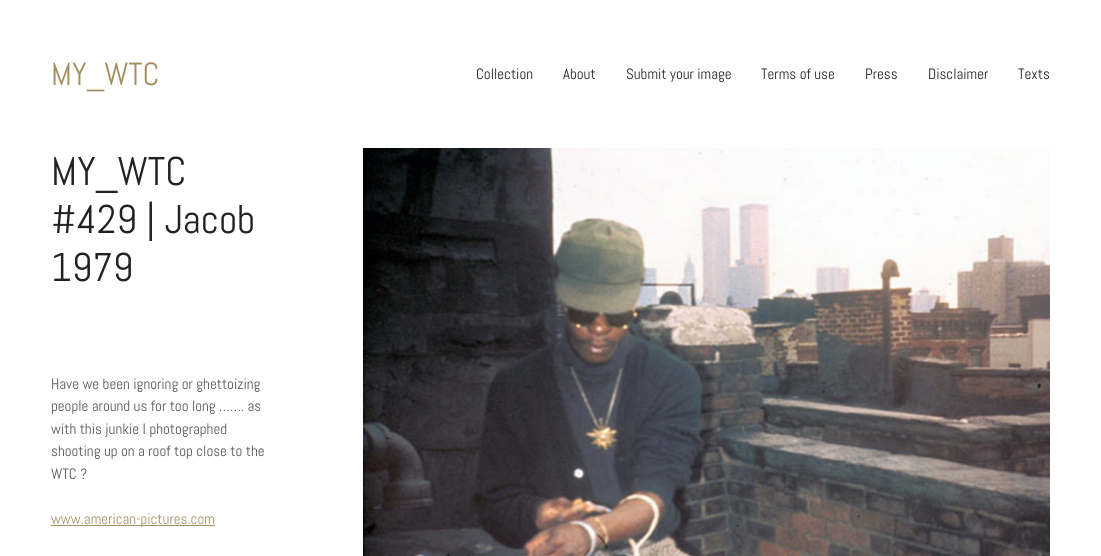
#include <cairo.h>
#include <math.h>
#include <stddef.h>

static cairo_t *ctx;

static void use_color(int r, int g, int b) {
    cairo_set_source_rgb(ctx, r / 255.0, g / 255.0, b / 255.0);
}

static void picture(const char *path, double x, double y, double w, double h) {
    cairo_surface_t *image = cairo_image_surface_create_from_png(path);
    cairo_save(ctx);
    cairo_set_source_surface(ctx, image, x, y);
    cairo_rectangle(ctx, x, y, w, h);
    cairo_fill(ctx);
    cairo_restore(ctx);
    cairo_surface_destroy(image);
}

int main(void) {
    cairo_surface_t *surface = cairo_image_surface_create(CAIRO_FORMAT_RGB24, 1101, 556);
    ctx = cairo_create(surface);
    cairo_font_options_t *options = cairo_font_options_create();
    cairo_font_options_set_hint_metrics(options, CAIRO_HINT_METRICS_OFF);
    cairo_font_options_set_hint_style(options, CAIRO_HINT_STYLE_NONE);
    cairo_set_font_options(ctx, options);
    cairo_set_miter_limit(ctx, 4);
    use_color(255, 255, 255);
    cairo_paint(ctx);
    cairo_select_font_face(ctx, "Abel", CAIRO_FONT_SLANT_NORMAL, CAIRO_FONT_WEIGHT_NORMAL);
    cairo_set_font_size(ctx, 32);
    use_color(165, 143, 96);
    cairo_move_to(ctx, 51, 85);
    cairo_show_text(ctx, "MY_WTC");
    cairo_set_font_size(ctx, 15);
    use_color(34, 34, 34);
    cairo_move_to(ctx, 476, 79);
    cairo_show_text(ctx, "Collection");
    cairo_move_to(ctx, 563, 79);
    cairo_show_text(ctx, "About");
    cairo_move_to(ctx, 626, 79);
    cairo_show_text(ctx, "Submit your image");
    cairo_move_to(ctx, 761, 79);
    cairo_show_text(ctx, "Terms of use");
    cairo_move_to(ctx, 865, 79);
    cairo_show_text(ctx, "Press");
    cairo_move_to(ctx, 928, 79);
    cairo_show_text(ctx, "Disclaimer");
    cairo_move_to(ctx, 1018, 79);
    cairo_show_text(ctx, "Texts");
    cairo_set_font_size(ctx, 40);
    cairo_move_to(ctx, 51, 185);
    cairo_show_text(ctx, "MY_WTC");
    cairo_move_to(ctx, 51, 233);
    cairo_show_text(ctx, "#429 | Jacob");
    cairo_move_to(ctx, 51, 281);
    cairo_show_text(ctx, "1979");
    cairo_set_font_size(ctx, 15);
    use_color(85, 85, 85);
    cairo_move_to(ctx, 51, 389);
    cairo_show_text(ctx, "Have we been ignoring or ghettoizing");
    cairo_move_to(ctx, 51, 411);
    cairo_show_text(ctx, "people around us for too long ……. as");
    cairo_move_to(ctx, 51, 434);
    cairo_show_text(ctx, "with this junkie I photographed");
    cairo_move_to(ctx, 51, 456);
    cairo_show_text(ctx, "shooting up on a roof top close to the");
    cairo_move_to(ctx, 51, 479);
    cairo_show_text(ctx, "WTC ?");
    use_color(165, 143, 96);
    cairo_rectangle(ctx, 51, 525, 164, 1);
    cairo_fill(ctx);
    cairo_move_to(ctx, 51, 524);
    cairo_show_text(ctx, "www.american-pictures.com");
    picture("img1.png", 363, 148, 687, 408);
    cairo_surface_write_to_png(surface, "result.png");
    cairo_font_options_destroy(options);
    cairo_destroy(ctx);
    cairo_surface_destroy(surface);
    return 0;
}
